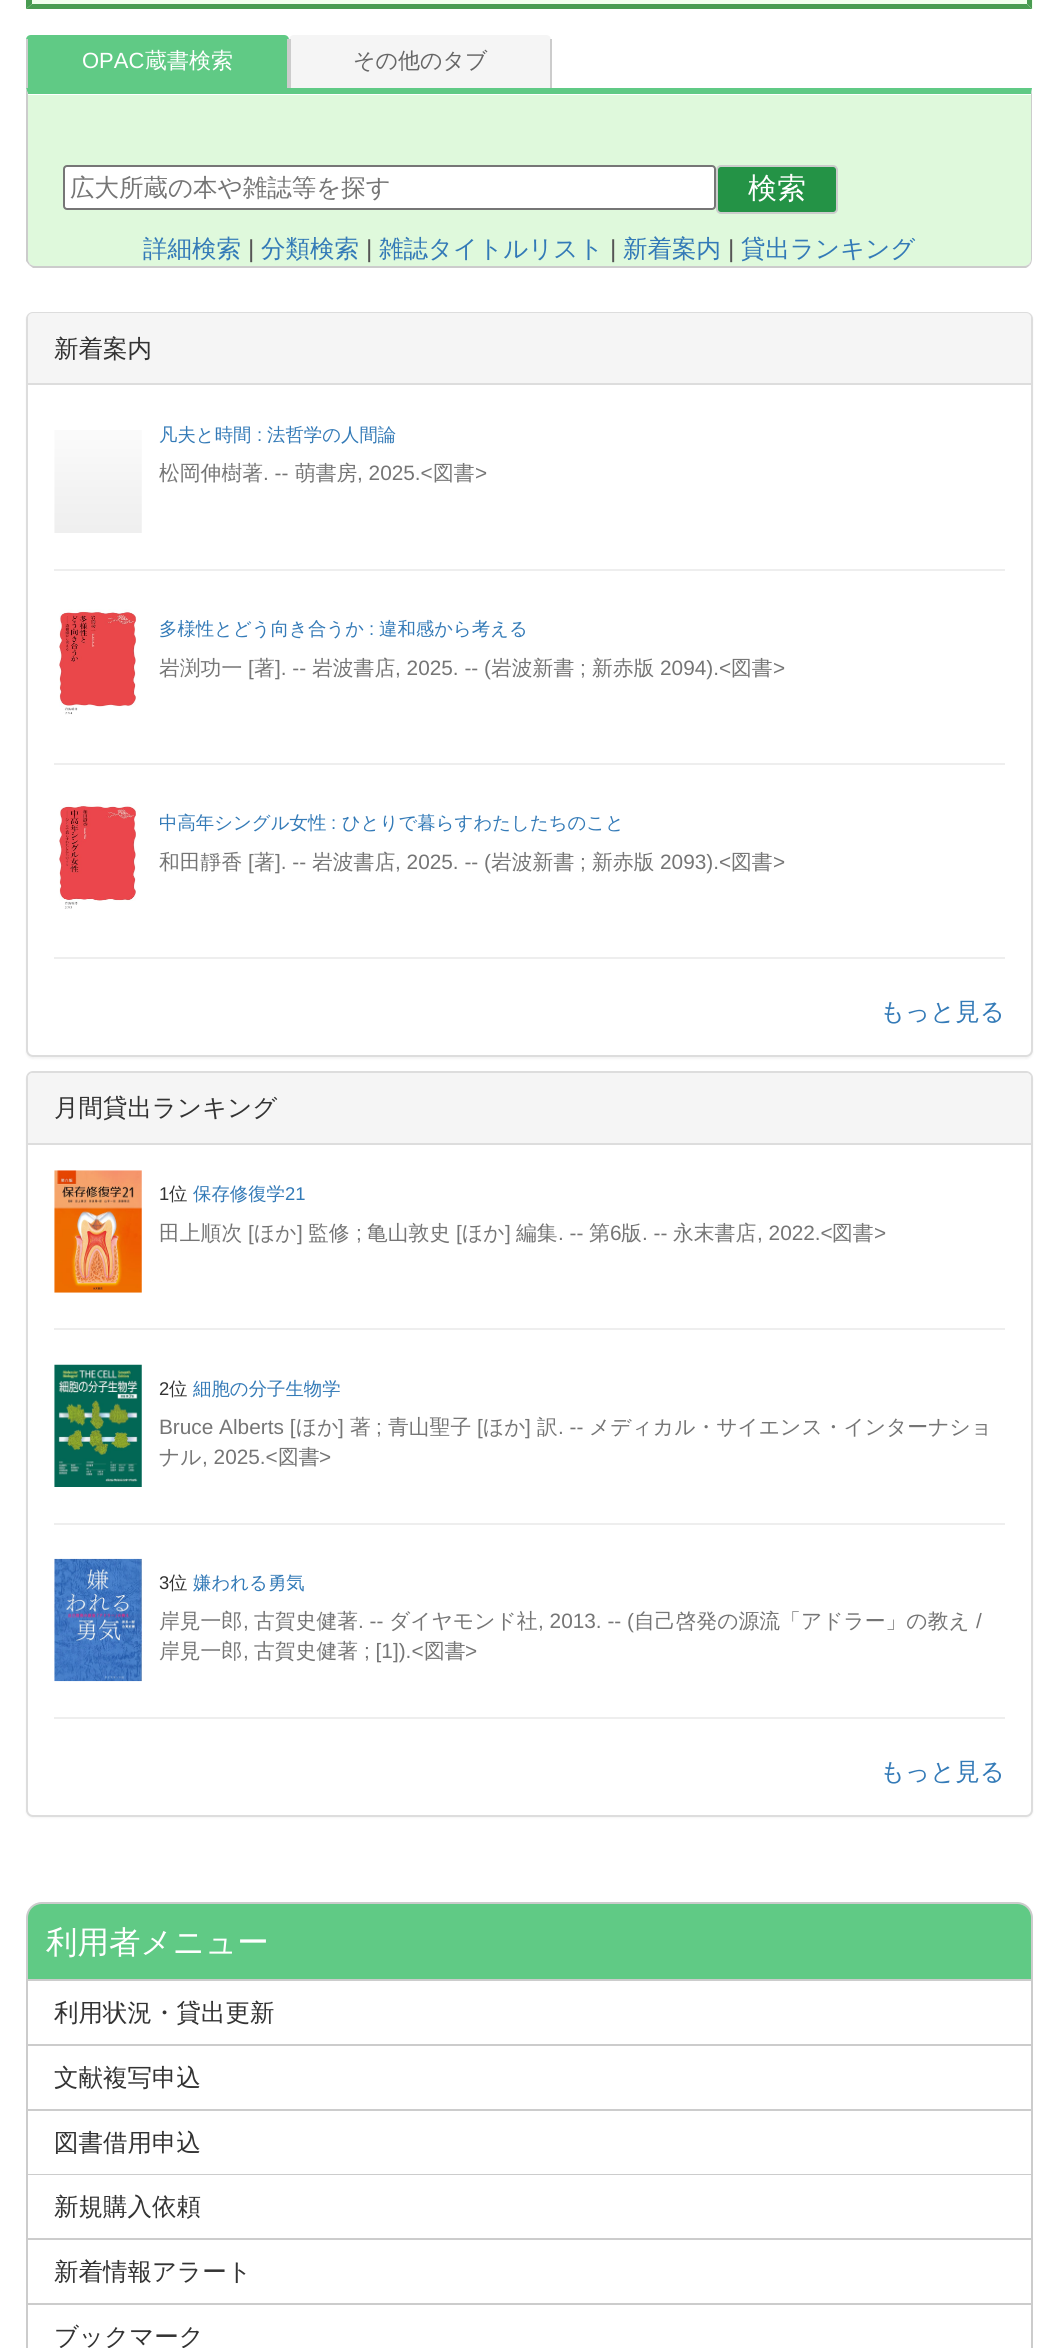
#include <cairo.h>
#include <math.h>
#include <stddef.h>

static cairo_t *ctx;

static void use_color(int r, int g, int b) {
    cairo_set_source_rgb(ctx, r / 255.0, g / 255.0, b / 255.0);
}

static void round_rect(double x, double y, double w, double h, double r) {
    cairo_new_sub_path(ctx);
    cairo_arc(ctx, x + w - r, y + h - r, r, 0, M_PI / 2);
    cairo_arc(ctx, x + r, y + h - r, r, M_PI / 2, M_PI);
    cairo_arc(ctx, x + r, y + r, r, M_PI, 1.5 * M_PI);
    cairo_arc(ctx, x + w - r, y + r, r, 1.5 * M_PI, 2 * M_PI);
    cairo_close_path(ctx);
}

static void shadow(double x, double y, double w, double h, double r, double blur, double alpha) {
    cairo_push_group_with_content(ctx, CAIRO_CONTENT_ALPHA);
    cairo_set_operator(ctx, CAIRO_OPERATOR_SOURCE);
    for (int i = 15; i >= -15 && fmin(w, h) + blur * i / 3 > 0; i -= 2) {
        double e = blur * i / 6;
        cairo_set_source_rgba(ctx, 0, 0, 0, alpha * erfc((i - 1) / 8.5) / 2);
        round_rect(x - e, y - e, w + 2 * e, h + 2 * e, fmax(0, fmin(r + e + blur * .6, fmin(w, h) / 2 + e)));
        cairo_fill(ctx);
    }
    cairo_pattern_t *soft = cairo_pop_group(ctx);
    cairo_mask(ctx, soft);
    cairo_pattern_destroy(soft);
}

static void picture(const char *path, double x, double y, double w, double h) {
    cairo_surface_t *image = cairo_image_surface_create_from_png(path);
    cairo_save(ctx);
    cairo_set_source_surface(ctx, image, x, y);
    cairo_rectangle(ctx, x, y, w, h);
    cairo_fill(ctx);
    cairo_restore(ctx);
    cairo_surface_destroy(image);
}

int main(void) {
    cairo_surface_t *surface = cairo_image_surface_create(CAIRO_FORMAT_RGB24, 1058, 2348);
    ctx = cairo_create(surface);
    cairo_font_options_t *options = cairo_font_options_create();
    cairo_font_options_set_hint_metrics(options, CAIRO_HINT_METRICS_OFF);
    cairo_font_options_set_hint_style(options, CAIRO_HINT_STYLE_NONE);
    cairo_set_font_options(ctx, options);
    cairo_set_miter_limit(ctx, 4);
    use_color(255, 255, 255);
    cairo_paint(ctx);
    use_color(242, 255, 238);
    cairo_rectangle(ctx, 26, 0, 1007, 9);
    cairo_fill(ctx);
    use_color(73, 155, 81);
    cairo_new_path(ctx);
    cairo_move_to(ctx, 1032, -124);
    cairo_line_to(ctx, 1032, 9);
    cairo_line_to(ctx, 1027, 4);
    cairo_line_to(ctx, 1027, -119);
    cairo_close_path(ctx);
    cairo_fill(ctx);
    use_color(74, 156, 82);
    cairo_new_path(ctx);
    cairo_move_to(ctx, 1032, 9);
    cairo_line_to(ctx, 26, 9);
    cairo_line_to(ctx, 32, 4);
    cairo_line_to(ctx, 1027, 4);
    cairo_close_path(ctx);
    cairo_fill(ctx);
    use_color(73, 155, 81);
    cairo_new_path(ctx);
    cairo_move_to(ctx, 26, 9);
    cairo_line_to(ctx, 26, -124);
    cairo_line_to(ctx, 32, -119);
    cairo_line_to(ctx, 32, 4);
    cairo_close_path(ctx);
    cairo_fill(ctx);
    use_color(96, 202, 133);
    cairo_new_path(ctx);
    cairo_move_to(ctx, 31, 35);
    cairo_line_to(ctx, 284, 35);
    cairo_curve_to(ctx, 287, 35, 289, 37, 289, 40);
    cairo_line_to(ctx, 289, 88);
    cairo_line_to(ctx, 26, 88);
    cairo_line_to(ctx, 26, 40);
    cairo_curve_to(ctx, 26, 37, 28, 35, 31, 35);
    cairo_close_path(ctx);
    cairo_fill(ctx);
    use_color(204, 204, 204);
    cairo_rectangle(ctx, 287, 39, 2, 49);
    cairo_fill(ctx);
    cairo_rectangle(ctx, 26, 39, 2, 49);
    cairo_fill(ctx);
    cairo_select_font_face(ctx, "Liberation Sans", CAIRO_FONT_SLANT_NORMAL, CAIRO_FONT_WEIGHT_NORMAL);
    cairo_set_font_size(ctx, 22);
    use_color(255, 255, 255);
    cairo_move_to(ctx, 82, 68);
    cairo_show_text(ctx, "OPAC");
    cairo_select_font_face(ctx, "WenQuanYi Zen Hei Medium", CAIRO_FONT_SLANT_NORMAL, CAIRO_FONT_WEIGHT_NORMAL);
    cairo_move_to(ctx, 145, 68);
    cairo_show_text(ctx, "蔵書検索");
    use_color(245, 245, 245);
    cairo_new_path(ctx);
    cairo_move_to(ctx, 294, 35);
    cairo_line_to(ctx, 546, 35);
    cairo_curve_to(ctx, 549, 35, 551, 37, 551, 40);
    cairo_line_to(ctx, 551, 88);
    cairo_line_to(ctx, 289, 88);
    cairo_line_to(ctx, 289, 40);
    cairo_curve_to(ctx, 289, 37, 291, 35, 294, 35);
    cairo_close_path(ctx);
    cairo_fill(ctx);
    use_color(204, 204, 204);
    cairo_rectangle(ctx, 550, 39, 2, 49);
    cairo_fill(ctx);
    cairo_rectangle(ctx, 289, 39, 2, 49);
    cairo_fill(ctx);
    use_color(102, 102, 102);
    cairo_move_to(ctx, 353, 68);
    cairo_show_text(ctx, "その他のタブ");
    use_color(223, 249, 220);
    cairo_new_path(ctx);
    cairo_move_to(ctx, 28, 95);
    cairo_line_to(ctx, 1031, 95);
    cairo_line_to(ctx, 1031, 259);
    cairo_curve_to(ctx, 1031, 263, 1028, 266, 1024, 266);
    cairo_line_to(ctx, 35, 266);
    cairo_curve_to(ctx, 31, 266, 28, 263, 28, 259);
    cairo_close_path(ctx);
    cairo_fill(ctx);
    use_color(96, 202, 133);
    cairo_new_path(ctx);
    cairo_move_to(ctx, 28, 94);
    cairo_line_to(ctx, 1031, 94);
    cairo_line_to(ctx, 1032, 88);
    cairo_line_to(ctx, 26, 88);
    cairo_close_path(ctx);
    cairo_fill(ctx);
    use_color(204, 204, 204);
    cairo_new_path(ctx);
    cairo_move_to(ctx, 1032, 90);
    cairo_line_to(ctx, 1032, 259);
    cairo_curve_to(ctx, 1032, 261, 1031, 264, 1030, 265);
    cairo_line_to(ctx, 1029, 264);
    cairo_curve_to(ctx, 1030, 263, 1031, 261, 1031, 259);
    cairo_line_to(ctx, 1031, 94);
    cairo_close_path(ctx);
    cairo_fill(ctx);
    cairo_new_path(ctx);
    cairo_move_to(ctx, 33, 268);
    cairo_line_to(ctx, 29, 265);
    cairo_line_to(ctx, 30, 264);
    cairo_curve_to(ctx, 31, 265, 33, 266, 35, 266);
    cairo_line_to(ctx, 1024, 266);
    cairo_curve_to(ctx, 1026, 266, 1028, 265, 1029, 264);
    cairo_line_to(ctx, 1030, 265);
    cairo_curve_to(ctx, 1029, 266, 1028, 267, 1026, 268);
    cairo_close_path(ctx);
    cairo_fill(ctx);
    cairo_new_path(ctx);
    cairo_move_to(ctx, 26, 88);
    cairo_line_to(ctx, 28, 94);
    cairo_line_to(ctx, 28, 259);
    cairo_curve_to(ctx, 28, 261, 29, 263, 30, 264);
    cairo_line_to(ctx, 29, 265);
    cairo_line_to(ctx, 26, 261);
    cairo_close_path(ctx);
    cairo_fill(ctx);
    use_color(255, 255, 255);
    round_rect(64, 166, 651, 43, 3);
    cairo_fill_preserve(ctx);
    use_color(118, 118, 118);
    cairo_stroke(ctx);
    cairo_set_font_size(ctx, 24.5);
    use_color(117, 117, 117);
    cairo_move_to(ctx, 70, 196);
    cairo_show_text(ctx, "広大所蔵の本や雑誌等を探す");
    use_color(36, 147, 70);
    round_rect(717, 166, 120, 47, 4);
    cairo_fill_preserve(ctx);
    use_color(204, 204, 204);
    cairo_stroke(ctx);
    cairo_set_font_size(ctx, 29);
    use_color(255, 255, 255);
    cairo_move_to(ctx, 748, 198);
    cairo_show_text(ctx, "検索");
    cairo_set_font_size(ctx, 24.5);
    use_color(51, 122, 183);
    cairo_move_to(ctx, 143, 257);
    cairo_show_text(ctx, "詳細検索");
    cairo_select_font_face(ctx, "Liberation Sans", CAIRO_FONT_SLANT_NORMAL, CAIRO_FONT_WEIGHT_NORMAL);
    use_color(85, 85, 85);
    cairo_move_to(ctx, 248, 257);
    cairo_show_text(ctx, "|");
    cairo_select_font_face(ctx, "WenQuanYi Zen Hei Medium", CAIRO_FONT_SLANT_NORMAL, CAIRO_FONT_WEIGHT_NORMAL);
    use_color(51, 122, 183);
    cairo_move_to(ctx, 261, 257);
    cairo_show_text(ctx, "分類検索");
    cairo_select_font_face(ctx, "Liberation Sans", CAIRO_FONT_SLANT_NORMAL, CAIRO_FONT_WEIGHT_NORMAL);
    use_color(85, 85, 85);
    cairo_move_to(ctx, 366, 257);
    cairo_show_text(ctx, "|");
    cairo_select_font_face(ctx, "WenQuanYi Zen Hei Medium", CAIRO_FONT_SLANT_NORMAL, CAIRO_FONT_WEIGHT_NORMAL);
    use_color(51, 122, 183);
    cairo_move_to(ctx, 379, 257);
    cairo_show_text(ctx, "雑誌タイトルリスト");
    cairo_select_font_face(ctx, "Liberation Sans", CAIRO_FONT_SLANT_NORMAL, CAIRO_FONT_WEIGHT_NORMAL);
    use_color(85, 85, 85);
    cairo_move_to(ctx, 610, 257);
    cairo_show_text(ctx, "|");
    cairo_select_font_face(ctx, "WenQuanYi Zen Hei Medium", CAIRO_FONT_SLANT_NORMAL, CAIRO_FONT_WEIGHT_NORMAL);
    use_color(51, 122, 183);
    cairo_move_to(ctx, 623, 257);
    cairo_show_text(ctx, "新着案内");
    cairo_select_font_face(ctx, "Liberation Sans", CAIRO_FONT_SLANT_NORMAL, CAIRO_FONT_WEIGHT_NORMAL);
    use_color(85, 85, 85);
    cairo_move_to(ctx, 728, 257);
    cairo_show_text(ctx, "|");
    cairo_select_font_face(ctx, "WenQuanYi Zen Hei Medium", CAIRO_FONT_SLANT_NORMAL, CAIRO_FONT_WEIGHT_NORMAL);
    use_color(51, 122, 183);
    cairo_move_to(ctx, 741, 257);
    cairo_show_text(ctx, "貸出ランキング");
    use_color(0, 0, 0);
    shadow(26, 313, 1007, 746, 7, 1, 0.05);
    use_color(255, 255, 255);
    round_rect(27, 313, 1005, 743, 6);
    cairo_fill_preserve(ctx);
    use_color(221, 221, 221);
    cairo_stroke(ctx);
    use_color(245, 245, 245);
    cairo_new_path(ctx);
    cairo_move_to(ctx, 33, 313);
    cairo_line_to(ctx, 1026, 313);
    cairo_curve_to(ctx, 1029, 313, 1031, 315, 1031, 318);
    cairo_line_to(ctx, 1031, 385);
    cairo_line_to(ctx, 28, 385);
    cairo_line_to(ctx, 28, 318);
    cairo_curve_to(ctx, 28, 315, 30, 313, 33, 313);
    cairo_close_path(ctx);
    cairo_fill(ctx);
    use_color(221, 221, 221);
    cairo_rectangle(ctx, 28, 383, 1003, 2);
    cairo_fill(ctx);
    use_color(51, 51, 51);
    cairo_move_to(ctx, 54, 357);
    cairo_show_text(ctx, "新着案内");
    picture("img1.png", 54, 430, 88, 103);
    cairo_set_font_size(ctx, 18.4);
    use_color(51, 122, 183);
    cairo_move_to(ctx, 159, 441);
    cairo_show_text(ctx, "凡夫と時間");
    cairo_select_font_face(ctx, "Liberation Sans", CAIRO_FONT_SLANT_NORMAL, CAIRO_FONT_WEIGHT_NORMAL);
    cairo_move_to(ctx, 257, 441);
    cairo_show_text(ctx, ":");
    cairo_select_font_face(ctx, "WenQuanYi Zen Hei Medium", CAIRO_FONT_SLANT_NORMAL, CAIRO_FONT_WEIGHT_NORMAL);
    cairo_move_to(ctx, 267, 441);
    cairo_show_text(ctx, "法哲学の人間論");
    cairo_set_font_size(ctx, 20.8);
    use_color(117, 117, 117);
    cairo_move_to(ctx, 159, 480);
    cairo_show_text(ctx, "松岡伸樹著");
    cairo_select_font_face(ctx, "Liberation Sans", CAIRO_FONT_SLANT_NORMAL, CAIRO_FONT_WEIGHT_NORMAL);
    cairo_move_to(ctx, 263, 480);
    cairo_show_text(ctx, ". --");
    cairo_select_font_face(ctx, "WenQuanYi Zen Hei Medium", CAIRO_FONT_SLANT_NORMAL, CAIRO_FONT_WEIGHT_NORMAL);
    cairo_move_to(ctx, 295, 480);
    cairo_show_text(ctx, "萌書房");
    cairo_select_font_face(ctx, "Liberation Sans", CAIRO_FONT_SLANT_NORMAL, CAIRO_FONT_WEIGHT_NORMAL);
    cairo_move_to(ctx, 357, 480);
    cairo_show_text(ctx, ", 2025.<");
    cairo_select_font_face(ctx, "WenQuanYi Zen Hei Medium", CAIRO_FONT_SLANT_NORMAL, CAIRO_FONT_WEIGHT_NORMAL);
    cairo_move_to(ctx, 433, 480);
    cairo_show_text(ctx, "図書");
    cairo_select_font_face(ctx, "Liberation Sans", CAIRO_FONT_SLANT_NORMAL, CAIRO_FONT_WEIGHT_NORMAL);
    cairo_move_to(ctx, 475, 480);
    cairo_show_text(ctx, ">");
    use_color(238, 238, 238);
    cairo_rectangle(ctx, 54, 569, 951, 2);
    cairo_fill(ctx);
    picture("img2.png", 59, 609, 78, 106);
    cairo_select_font_face(ctx, "WenQuanYi Zen Hei Medium", CAIRO_FONT_SLANT_NORMAL, CAIRO_FONT_WEIGHT_NORMAL);
    cairo_set_font_size(ctx, 18.4);
    use_color(51, 122, 183);
    cairo_move_to(ctx, 159, 635);
    cairo_show_text(ctx, "多様性とどう向き合うか");
    cairo_select_font_face(ctx, "Liberation Sans", CAIRO_FONT_SLANT_NORMAL, CAIRO_FONT_WEIGHT_NORMAL);
    cairo_move_to(ctx, 369, 635);
    cairo_show_text(ctx, ":");
    cairo_select_font_face(ctx, "WenQuanYi Zen Hei Medium", CAIRO_FONT_SLANT_NORMAL, CAIRO_FONT_WEIGHT_NORMAL);
    cairo_move_to(ctx, 379, 635);
    cairo_show_text(ctx, "違和感から考える");
    cairo_set_font_size(ctx, 20.8);
    use_color(117, 117, 117);
    cairo_move_to(ctx, 159, 675);
    cairo_show_text(ctx, "岩渕功一");
    cairo_select_font_face(ctx, "Liberation Sans", CAIRO_FONT_SLANT_NORMAL, CAIRO_FONT_WEIGHT_NORMAL);
    cairo_move_to(ctx, 248, 675);
    cairo_show_text(ctx, "[");
    cairo_select_font_face(ctx, "WenQuanYi Zen Hei Medium", CAIRO_FONT_SLANT_NORMAL, CAIRO_FONT_WEIGHT_NORMAL);
    cairo_move_to(ctx, 254, 675);
    cairo_show_text(ctx, "著");
    cairo_select_font_face(ctx, "Liberation Sans", CAIRO_FONT_SLANT_NORMAL, CAIRO_FONT_WEIGHT_NORMAL);
    cairo_move_to(ctx, 275, 675);
    cairo_show_text(ctx, "]. --");
    cairo_select_font_face(ctx, "WenQuanYi Zen Hei Medium", CAIRO_FONT_SLANT_NORMAL, CAIRO_FONT_WEIGHT_NORMAL);
    cairo_move_to(ctx, 312, 675);
    cairo_show_text(ctx, "岩波書店");
    cairo_select_font_face(ctx, "Liberation Sans", CAIRO_FONT_SLANT_NORMAL, CAIRO_FONT_WEIGHT_NORMAL);
    cairo_move_to(ctx, 395, 675);
    cairo_show_text(ctx, ", 2025. -- (");
    cairo_select_font_face(ctx, "WenQuanYi Zen Hei Medium", CAIRO_FONT_SLANT_NORMAL, CAIRO_FONT_WEIGHT_NORMAL);
    cairo_move_to(ctx, 491, 675);
    cairo_show_text(ctx, "岩波新書");
    cairo_select_font_face(ctx, "Liberation Sans", CAIRO_FONT_SLANT_NORMAL, CAIRO_FONT_WEIGHT_NORMAL);
    cairo_move_to(ctx, 580, 675);
    cairo_show_text(ctx, ";");
    cairo_select_font_face(ctx, "WenQuanYi Zen Hei Medium", CAIRO_FONT_SLANT_NORMAL, CAIRO_FONT_WEIGHT_NORMAL);
    cairo_move_to(ctx, 592, 675);
    cairo_show_text(ctx, "新赤版");
    cairo_select_font_face(ctx, "Liberation Sans", CAIRO_FONT_SLANT_NORMAL, CAIRO_FONT_WEIGHT_NORMAL);
    cairo_move_to(ctx, 660, 675);
    cairo_show_text(ctx, "2094).<");
    cairo_select_font_face(ctx, "WenQuanYi Zen Hei Medium", CAIRO_FONT_SLANT_NORMAL, CAIRO_FONT_WEIGHT_NORMAL);
    cairo_move_to(ctx, 731, 675);
    cairo_show_text(ctx, "図書");
    cairo_select_font_face(ctx, "Liberation Sans", CAIRO_FONT_SLANT_NORMAL, CAIRO_FONT_WEIGHT_NORMAL);
    cairo_move_to(ctx, 773, 675);
    cairo_show_text(ctx, ">");
    use_color(238, 238, 238);
    cairo_rectangle(ctx, 54, 763, 951, 2);
    cairo_fill(ctx);
    picture("img3.png", 59, 803, 77, 106);
    cairo_select_font_face(ctx, "WenQuanYi Zen Hei Medium", CAIRO_FONT_SLANT_NORMAL, CAIRO_FONT_WEIGHT_NORMAL);
    cairo_set_font_size(ctx, 18.4);
    use_color(51, 122, 183);
    cairo_move_to(ctx, 159, 829);
    cairo_show_text(ctx, "中高年シングル女性");
    cairo_select_font_face(ctx, "Liberation Sans", CAIRO_FONT_SLANT_NORMAL, CAIRO_FONT_WEIGHT_NORMAL);
    cairo_move_to(ctx, 331, 829);
    cairo_show_text(ctx, ":");
    cairo_select_font_face(ctx, "WenQuanYi Zen Hei Medium", CAIRO_FONT_SLANT_NORMAL, CAIRO_FONT_WEIGHT_NORMAL);
    cairo_move_to(ctx, 342, 829);
    cairo_show_text(ctx, "ひとりで暮らすわたしたちのこと");
    cairo_set_font_size(ctx, 20.8);
    use_color(117, 117, 117);
    cairo_move_to(ctx, 159, 869);
    cairo_show_text(ctx, "和田靜香");
    cairo_select_font_face(ctx, "Liberation Sans", CAIRO_FONT_SLANT_NORMAL, CAIRO_FONT_WEIGHT_NORMAL);
    cairo_move_to(ctx, 248, 869);
    cairo_show_text(ctx, "[");
    cairo_select_font_face(ctx, "WenQuanYi Zen Hei Medium", CAIRO_FONT_SLANT_NORMAL, CAIRO_FONT_WEIGHT_NORMAL);
    cairo_move_to(ctx, 254, 869);
    cairo_show_text(ctx, "著");
    cairo_select_font_face(ctx, "Liberation Sans", CAIRO_FONT_SLANT_NORMAL, CAIRO_FONT_WEIGHT_NORMAL);
    cairo_move_to(ctx, 275, 869);
    cairo_show_text(ctx, "]. --");
    cairo_select_font_face(ctx, "WenQuanYi Zen Hei Medium", CAIRO_FONT_SLANT_NORMAL, CAIRO_FONT_WEIGHT_NORMAL);
    cairo_move_to(ctx, 312, 869);
    cairo_show_text(ctx, "岩波書店");
    cairo_select_font_face(ctx, "Liberation Sans", CAIRO_FONT_SLANT_NORMAL, CAIRO_FONT_WEIGHT_NORMAL);
    cairo_move_to(ctx, 395, 869);
    cairo_show_text(ctx, ", 2025. -- (");
    cairo_select_font_face(ctx, "WenQuanYi Zen Hei Medium", CAIRO_FONT_SLANT_NORMAL, CAIRO_FONT_WEIGHT_NORMAL);
    cairo_move_to(ctx, 491, 869);
    cairo_show_text(ctx, "岩波新書");
    cairo_select_font_face(ctx, "Liberation Sans", CAIRO_FONT_SLANT_NORMAL, CAIRO_FONT_WEIGHT_NORMAL);
    cairo_move_to(ctx, 580, 869);
    cairo_show_text(ctx, ";");
    cairo_select_font_face(ctx, "WenQuanYi Zen Hei Medium", CAIRO_FONT_SLANT_NORMAL, CAIRO_FONT_WEIGHT_NORMAL);
    cairo_move_to(ctx, 592, 869);
    cairo_show_text(ctx, "新赤版");
    cairo_select_font_face(ctx, "Liberation Sans", CAIRO_FONT_SLANT_NORMAL, CAIRO_FONT_WEIGHT_NORMAL);
    cairo_move_to(ctx, 660, 869);
    cairo_show_text(ctx, "2093).<");
    cairo_select_font_face(ctx, "WenQuanYi Zen Hei Medium", CAIRO_FONT_SLANT_NORMAL, CAIRO_FONT_WEIGHT_NORMAL);
    cairo_move_to(ctx, 731, 869);
    cairo_show_text(ctx, "図書");
    cairo_select_font_face(ctx, "Liberation Sans", CAIRO_FONT_SLANT_NORMAL, CAIRO_FONT_WEIGHT_NORMAL);
    cairo_move_to(ctx, 773, 869);
    cairo_show_text(ctx, ">");
    use_color(238, 238, 238);
    cairo_rectangle(ctx, 54, 957, 951, 2);
    cairo_fill(ctx);
    cairo_select_font_face(ctx, "WenQuanYi Zen Hei Medium", CAIRO_FONT_SLANT_NORMAL, CAIRO_FONT_WEIGHT_NORMAL);
    cairo_set_font_size(ctx, 24.5);
    use_color(51, 122, 183);
    cairo_move_to(ctx, 880, 1020);
    cairo_show_text(ctx, "もっと見る");
    use_color(0, 0, 0);
    shadow(26, 1073, 1007, 745, 7, 1, 0.05);
    use_color(255, 255, 255);
    round_rect(27, 1072, 1005, 744, 6);
    cairo_fill_preserve(ctx);
    use_color(221, 221, 221);
    cairo_stroke(ctx);
    use_color(245, 245, 245);
    cairo_new_path(ctx);
    cairo_move_to(ctx, 33, 1073);
    cairo_line_to(ctx, 1026, 1073);
    cairo_curve_to(ctx, 1029, 1073, 1031, 1075, 1031, 1078);
    cairo_line_to(ctx, 1031, 1145);
    cairo_line_to(ctx, 28, 1145);
    cairo_line_to(ctx, 28, 1078);
    cairo_curve_to(ctx, 28, 1075, 30, 1073, 33, 1073);
    cairo_close_path(ctx);
    cairo_fill(ctx);
    use_color(221, 221, 221);
    cairo_rectangle(ctx, 28, 1143, 1003, 2);
    cairo_fill(ctx);
    use_color(51, 51, 51);
    cairo_move_to(ctx, 54, 1116);
    cairo_show_text(ctx, "月間貸出ランキング");
    picture("img4.png", 54, 1170, 88, 123);
    cairo_select_font_face(ctx, "Liberation Sans", CAIRO_FONT_SLANT_NORMAL, CAIRO_FONT_WEIGHT_NORMAL);
    cairo_set_font_size(ctx, 18.4);
    cairo_move_to(ctx, 159, 1200);
    cairo_show_text(ctx, "1");
    cairo_select_font_face(ctx, "WenQuanYi Zen Hei Medium", CAIRO_FONT_SLANT_NORMAL, CAIRO_FONT_WEIGHT_NORMAL);
    cairo_move_to(ctx, 169, 1200);
    cairo_show_text(ctx, "位");
    use_color(51, 122, 183);
    cairo_move_to(ctx, 193, 1200);
    cairo_show_text(ctx, "保存修復学");
    cairo_select_font_face(ctx, "Liberation Sans", CAIRO_FONT_SLANT_NORMAL, CAIRO_FONT_WEIGHT_NORMAL);
    cairo_move_to(ctx, 285, 1200);
    cairo_show_text(ctx, "21");
    cairo_select_font_face(ctx, "WenQuanYi Zen Hei Medium", CAIRO_FONT_SLANT_NORMAL, CAIRO_FONT_WEIGHT_NORMAL);
    cairo_set_font_size(ctx, 20.8);
    use_color(117, 117, 117);
    cairo_move_to(ctx, 159, 1240);
    cairo_show_text(ctx, "田上順次");
    cairo_select_font_face(ctx, "Liberation Sans", CAIRO_FONT_SLANT_NORMAL, CAIRO_FONT_WEIGHT_NORMAL);
    cairo_move_to(ctx, 248, 1240);
    cairo_show_text(ctx, "[");
    cairo_select_font_face(ctx, "WenQuanYi Zen Hei Medium", CAIRO_FONT_SLANT_NORMAL, CAIRO_FONT_WEIGHT_NORMAL);
    cairo_move_to(ctx, 254, 1240);
    cairo_show_text(ctx, "ほか");
    cairo_select_font_face(ctx, "Liberation Sans", CAIRO_FONT_SLANT_NORMAL, CAIRO_FONT_WEIGHT_NORMAL);
    cairo_move_to(ctx, 297, 1240);
    cairo_show_text(ctx, "]");
    cairo_select_font_face(ctx, "WenQuanYi Zen Hei Medium", CAIRO_FONT_SLANT_NORMAL, CAIRO_FONT_WEIGHT_NORMAL);
    cairo_move_to(ctx, 308, 1240);
    cairo_show_text(ctx, "監修");
    cairo_select_font_face(ctx, "Liberation Sans", CAIRO_FONT_SLANT_NORMAL, CAIRO_FONT_WEIGHT_NORMAL);
    cairo_move_to(ctx, 356, 1240);
    cairo_show_text(ctx, ";");
    cairo_select_font_face(ctx, "WenQuanYi Zen Hei Medium", CAIRO_FONT_SLANT_NORMAL, CAIRO_FONT_WEIGHT_NORMAL);
    cairo_move_to(ctx, 367, 1240);
    cairo_show_text(ctx, "亀山敦史");
    cairo_select_font_face(ctx, "Liberation Sans", CAIRO_FONT_SLANT_NORMAL, CAIRO_FONT_WEIGHT_NORMAL);
    cairo_move_to(ctx, 456, 1240);
    cairo_show_text(ctx, "[");
    cairo_select_font_face(ctx, "WenQuanYi Zen Hei Medium", CAIRO_FONT_SLANT_NORMAL, CAIRO_FONT_WEIGHT_NORMAL);
    cairo_move_to(ctx, 462, 1240);
    cairo_show_text(ctx, "ほか");
    cairo_select_font_face(ctx, "Liberation Sans", CAIRO_FONT_SLANT_NORMAL, CAIRO_FONT_WEIGHT_NORMAL);
    cairo_move_to(ctx, 505, 1240);
    cairo_show_text(ctx, "]");
    cairo_select_font_face(ctx, "WenQuanYi Zen Hei Medium", CAIRO_FONT_SLANT_NORMAL, CAIRO_FONT_WEIGHT_NORMAL);
    cairo_move_to(ctx, 516, 1240);
    cairo_show_text(ctx, "編集");
    cairo_select_font_face(ctx, "Liberation Sans", CAIRO_FONT_SLANT_NORMAL, CAIRO_FONT_WEIGHT_NORMAL);
    cairo_move_to(ctx, 558, 1240);
    cairo_show_text(ctx, ". --");
    cairo_select_font_face(ctx, "WenQuanYi Zen Hei Medium", CAIRO_FONT_SLANT_NORMAL, CAIRO_FONT_WEIGHT_NORMAL);
    cairo_move_to(ctx, 589, 1240);
    cairo_show_text(ctx, "第");
    cairo_select_font_face(ctx, "Liberation Sans", CAIRO_FONT_SLANT_NORMAL, CAIRO_FONT_WEIGHT_NORMAL);
    cairo_move_to(ctx, 610, 1240);
    cairo_show_text(ctx, "6");
    cairo_select_font_face(ctx, "WenQuanYi Zen Hei Medium", CAIRO_FONT_SLANT_NORMAL, CAIRO_FONT_WEIGHT_NORMAL);
    cairo_move_to(ctx, 621, 1240);
    cairo_show_text(ctx, "版");
    cairo_select_font_face(ctx, "Liberation Sans", CAIRO_FONT_SLANT_NORMAL, CAIRO_FONT_WEIGHT_NORMAL);
    cairo_move_to(ctx, 642, 1240);
    cairo_show_text(ctx, ". --");
    cairo_select_font_face(ctx, "WenQuanYi Zen Hei Medium", CAIRO_FONT_SLANT_NORMAL, CAIRO_FONT_WEIGHT_NORMAL);
    cairo_move_to(ctx, 673, 1240);
    cairo_show_text(ctx, "永末書店");
    cairo_select_font_face(ctx, "Liberation Sans", CAIRO_FONT_SLANT_NORMAL, CAIRO_FONT_WEIGHT_NORMAL);
    cairo_move_to(ctx, 757, 1240);
    cairo_show_text(ctx, ", 2022.<");
    cairo_select_font_face(ctx, "WenQuanYi Zen Hei Medium", CAIRO_FONT_SLANT_NORMAL, CAIRO_FONT_WEIGHT_NORMAL);
    cairo_move_to(ctx, 832, 1240);
    cairo_show_text(ctx, "図書");
    cairo_select_font_face(ctx, "Liberation Sans", CAIRO_FONT_SLANT_NORMAL, CAIRO_FONT_WEIGHT_NORMAL);
    cairo_move_to(ctx, 874, 1240);
    cairo_show_text(ctx, ">");
    use_color(238, 238, 238);
    cairo_rectangle(ctx, 54, 1328, 951, 2);
    cairo_fill(ctx);
    picture("img5.png", 54, 1364, 88, 123);
    cairo_set_font_size(ctx, 18.4);
    use_color(51, 51, 51);
    cairo_move_to(ctx, 159, 1395);
    cairo_show_text(ctx, "2");
    cairo_select_font_face(ctx, "WenQuanYi Zen Hei Medium", CAIRO_FONT_SLANT_NORMAL, CAIRO_FONT_WEIGHT_NORMAL);
    cairo_move_to(ctx, 169, 1395);
    cairo_show_text(ctx, "位");
    use_color(51, 122, 183);
    cairo_move_to(ctx, 193, 1395);
    cairo_show_text(ctx, "細胞の分子生物学");
    cairo_select_font_face(ctx, "Liberation Sans", CAIRO_FONT_SLANT_NORMAL, CAIRO_FONT_WEIGHT_NORMAL);
    cairo_set_font_size(ctx, 20.8);
    use_color(117, 117, 117);
    cairo_move_to(ctx, 159, 1434);
    cairo_show_text(ctx, "Bruce Alberts [");
    cairo_select_font_face(ctx, "WenQuanYi Zen Hei Medium", CAIRO_FONT_SLANT_NORMAL, CAIRO_FONT_WEIGHT_NORMAL);
    cairo_move_to(ctx, 296, 1434);
    cairo_show_text(ctx, "ほか");
    cairo_select_font_face(ctx, "Liberation Sans", CAIRO_FONT_SLANT_NORMAL, CAIRO_FONT_WEIGHT_NORMAL);
    cairo_move_to(ctx, 338, 1434);
    cairo_show_text(ctx, "]");
    cairo_select_font_face(ctx, "WenQuanYi Zen Hei Medium", CAIRO_FONT_SLANT_NORMAL, CAIRO_FONT_WEIGHT_NORMAL);
    cairo_move_to(ctx, 350, 1434);
    cairo_show_text(ctx, "著");
    cairo_select_font_face(ctx, "Liberation Sans", CAIRO_FONT_SLANT_NORMAL, CAIRO_FONT_WEIGHT_NORMAL);
    cairo_move_to(ctx, 376, 1434);
    cairo_show_text(ctx, ";");
    cairo_select_font_face(ctx, "WenQuanYi Zen Hei Medium", CAIRO_FONT_SLANT_NORMAL, CAIRO_FONT_WEIGHT_NORMAL);
    cairo_move_to(ctx, 388, 1434);
    cairo_show_text(ctx, "青山聖子");
    cairo_select_font_face(ctx, "Liberation Sans", CAIRO_FONT_SLANT_NORMAL, CAIRO_FONT_WEIGHT_NORMAL);
    cairo_move_to(ctx, 477, 1434);
    cairo_show_text(ctx, "[");
    cairo_select_font_face(ctx, "WenQuanYi Zen Hei Medium", CAIRO_FONT_SLANT_NORMAL, CAIRO_FONT_WEIGHT_NORMAL);
    cairo_move_to(ctx, 483, 1434);
    cairo_show_text(ctx, "ほか");
    cairo_select_font_face(ctx, "Liberation Sans", CAIRO_FONT_SLANT_NORMAL, CAIRO_FONT_WEIGHT_NORMAL);
    cairo_move_to(ctx, 525, 1434);
    cairo_show_text(ctx, "]");
    cairo_select_font_face(ctx, "WenQuanYi Zen Hei Medium", CAIRO_FONT_SLANT_NORMAL, CAIRO_FONT_WEIGHT_NORMAL);
    cairo_move_to(ctx, 537, 1434);
    cairo_show_text(ctx, "訳");
    cairo_select_font_face(ctx, "Liberation Sans", CAIRO_FONT_SLANT_NORMAL, CAIRO_FONT_WEIGHT_NORMAL);
    cairo_move_to(ctx, 558, 1434);
    cairo_show_text(ctx, ". --");
    cairo_select_font_face(ctx, "WenQuanYi Zen Hei Medium", CAIRO_FONT_SLANT_NORMAL, CAIRO_FONT_WEIGHT_NORMAL);
    cairo_move_to(ctx, 589, 1434);
    cairo_show_text(ctx, "メディカル・サイエンス・インターナショ");
    cairo_move_to(ctx, 159, 1464);
    cairo_show_text(ctx, "ナル");
    cairo_select_font_face(ctx, "Liberation Sans", CAIRO_FONT_SLANT_NORMAL, CAIRO_FONT_WEIGHT_NORMAL);
    cairo_move_to(ctx, 202, 1464);
    cairo_show_text(ctx, ", 2025.<");
    cairo_select_font_face(ctx, "WenQuanYi Zen Hei Medium", CAIRO_FONT_SLANT_NORMAL, CAIRO_FONT_WEIGHT_NORMAL);
    cairo_move_to(ctx, 278, 1464);
    cairo_show_text(ctx, "図書");
    cairo_select_font_face(ctx, "Liberation Sans", CAIRO_FONT_SLANT_NORMAL, CAIRO_FONT_WEIGHT_NORMAL);
    cairo_move_to(ctx, 319, 1464);
    cairo_show_text(ctx, ">");
    use_color(238, 238, 238);
    cairo_rectangle(ctx, 54, 1523, 951, 2);
    cairo_fill(ctx);
    picture("img6.png", 54, 1558, 88, 124);
    cairo_set_font_size(ctx, 18.4);
    use_color(51, 51, 51);
    cairo_move_to(ctx, 159, 1589);
    cairo_show_text(ctx, "3");
    cairo_select_font_face(ctx, "WenQuanYi Zen Hei Medium", CAIRO_FONT_SLANT_NORMAL, CAIRO_FONT_WEIGHT_NORMAL);
    cairo_move_to(ctx, 169, 1589);
    cairo_show_text(ctx, "位");
    use_color(51, 122, 183);
    cairo_move_to(ctx, 193, 1589);
    cairo_show_text(ctx, "嫌われる勇気");
    cairo_set_font_size(ctx, 20.8);
    use_color(117, 117, 117);
    cairo_move_to(ctx, 159, 1628);
    cairo_show_text(ctx, "岸見一郎");
    cairo_select_font_face(ctx, "Liberation Sans", CAIRO_FONT_SLANT_NORMAL, CAIRO_FONT_WEIGHT_NORMAL);
    cairo_move_to(ctx, 243, 1628);
    cairo_show_text(ctx, ",");
    cairo_select_font_face(ctx, "WenQuanYi Zen Hei Medium", CAIRO_FONT_SLANT_NORMAL, CAIRO_FONT_WEIGHT_NORMAL);
    cairo_move_to(ctx, 254, 1628);
    cairo_show_text(ctx, "古賀史健著");
    cairo_select_font_face(ctx, "Liberation Sans", CAIRO_FONT_SLANT_NORMAL, CAIRO_FONT_WEIGHT_NORMAL);
    cairo_move_to(ctx, 358, 1628);
    cairo_show_text(ctx, ". --");
    cairo_select_font_face(ctx, "WenQuanYi Zen Hei Medium", CAIRO_FONT_SLANT_NORMAL, CAIRO_FONT_WEIGHT_NORMAL);
    cairo_move_to(ctx, 389, 1628);
    cairo_show_text(ctx, "ダイヤモンド社");
    cairo_select_font_face(ctx, "Liberation Sans", CAIRO_FONT_SLANT_NORMAL, CAIRO_FONT_WEIGHT_NORMAL);
    cairo_move_to(ctx, 538, 1628);
    cairo_show_text(ctx, ", 2013. -- (");
    cairo_select_font_face(ctx, "WenQuanYi Zen Hei Medium", CAIRO_FONT_SLANT_NORMAL, CAIRO_FONT_WEIGHT_NORMAL);
    cairo_move_to(ctx, 634, 1628);
    cairo_show_text(ctx, "自己啓発の源流「アドラー」の教え");
    cairo_select_font_face(ctx, "Liberation Sans", CAIRO_FONT_SLANT_NORMAL, CAIRO_FONT_WEIGHT_NORMAL);
    cairo_move_to(ctx, 976, 1628);
    cairo_show_text(ctx, "/");
    cairo_select_font_face(ctx, "WenQuanYi Zen Hei Medium", CAIRO_FONT_SLANT_NORMAL, CAIRO_FONT_WEIGHT_NORMAL);
    cairo_move_to(ctx, 159, 1658);
    cairo_show_text(ctx, "岸見一郎");
    cairo_move_to(ctx, 254, 1658);
    cairo_show_text(ctx, "古賀史健著");
    cairo_select_font_face(ctx, "Liberation Sans", CAIRO_FONT_SLANT_NORMAL, CAIRO_FONT_WEIGHT_NORMAL);
    cairo_move_to(ctx, 364, 1658);
    cairo_show_text(ctx, "; [1]).<");
    cairo_select_font_face(ctx, "WenQuanYi Zen Hei Medium", CAIRO_FONT_SLANT_NORMAL, CAIRO_FONT_WEIGHT_NORMAL);
    cairo_move_to(ctx, 424, 1658);
    cairo_show_text(ctx, "図書");
    cairo_select_font_face(ctx, "Liberation Sans", CAIRO_FONT_SLANT_NORMAL, CAIRO_FONT_WEIGHT_NORMAL);
    cairo_move_to(ctx, 465, 1658);
    cairo_show_text(ctx, ">");
    cairo_move_to(ctx, 243, 1658);
    cairo_show_text(ctx, ",");
    use_color(238, 238, 238);
    cairo_rectangle(ctx, 54, 1717, 951, 2);
    cairo_fill(ctx);
    cairo_select_font_face(ctx, "WenQuanYi Zen Hei Medium", CAIRO_FONT_SLANT_NORMAL, CAIRO_FONT_WEIGHT_NORMAL);
    cairo_set_font_size(ctx, 24.5);
    use_color(51, 122, 183);
    cairo_move_to(ctx, 880, 1780);
    cairo_show_text(ctx, "もっと見る");
    use_color(96, 202, 133);
    cairo_new_path(ctx);
    cairo_move_to(ctx, 42, 1903);
    cairo_line_to(ctx, 1017, 1903);
    cairo_curve_to(ctx, 1025.5, 1903, 1032, 1909.5, 1032, 1918);
    cairo_line_to(ctx, 1032, 1980);
    cairo_line_to(ctx, 27, 1980);
    cairo_line_to(ctx, 27, 1918);
    cairo_curve_to(ctx, 27, 1909.5, 33.5, 1903, 42, 1903);
    cairo_close_path(ctx);
    cairo_fill_preserve(ctx);
    use_color(204, 204, 204);
    cairo_stroke(ctx);
    cairo_set_font_size(ctx, 31.5);
    use_color(255, 255, 255);
    cairo_move_to(ctx, 46, 1953);
    cairo_show_text(ctx, "利用者メニュー");
    use_color(204, 204, 204);
    cairo_rectangle(ctx, 1031, 1981, 2, 367);
    cairo_fill(ctx);
    cairo_rectangle(ctx, 26, 2044, 1007, 2);
    cairo_fill(ctx);
    cairo_rectangle(ctx, 26, 1981, 2, 65);
    cairo_fill(ctx);
    cairo_set_font_size(ctx, 24.5);
    use_color(51, 51, 51);
    cairo_move_to(ctx, 54, 2021);
    cairo_show_text(ctx, "利用状況・貸出更新");
    use_color(204, 204, 204);
    cairo_rectangle(ctx, 26, 2109, 1007, 2);
    cairo_fill(ctx);
    cairo_rectangle(ctx, 26, 2046, 2, 65);
    cairo_fill(ctx);
    use_color(51, 51, 51);
    cairo_move_to(ctx, 54, 2086);
    cairo_show_text(ctx, "文献複写申込");
    use_color(204, 204, 204);
    cairo_rectangle(ctx, 26, 2174, 1007, 1);
    cairo_fill(ctx);
    cairo_rectangle(ctx, 26, 2111, 2, 64);
    cairo_fill(ctx);
    use_color(51, 51, 51);
    cairo_move_to(ctx, 54, 2151);
    cairo_show_text(ctx, "図書借用申込");
    use_color(204, 204, 204);
    cairo_rectangle(ctx, 26, 2238, 1007, 2);
    cairo_fill(ctx);
    cairo_rectangle(ctx, 26, 2175, 2, 65);
    cairo_fill(ctx);
    use_color(51, 51, 51);
    cairo_move_to(ctx, 54, 2215);
    cairo_show_text(ctx, "新規購入依頼");
    use_color(204, 204, 204);
    cairo_rectangle(ctx, 26, 2303, 1007, 2);
    cairo_fill(ctx);
    cairo_rectangle(ctx, 26, 2240, 2, 108);
    cairo_fill(ctx);
    use_color(51, 51, 51);
    cairo_move_to(ctx, 54, 2280);
    cairo_show_text(ctx, "新着情報アラート");
    cairo_move_to(ctx, 54, 2345);
    cairo_show_text(ctx, "ブックマーク");
    cairo_surface_write_to_png(surface, "result.png");
    cairo_font_options_destroy(options);
    cairo_destroy(ctx);
    cairo_surface_destroy(surface);
    return 0;
}
